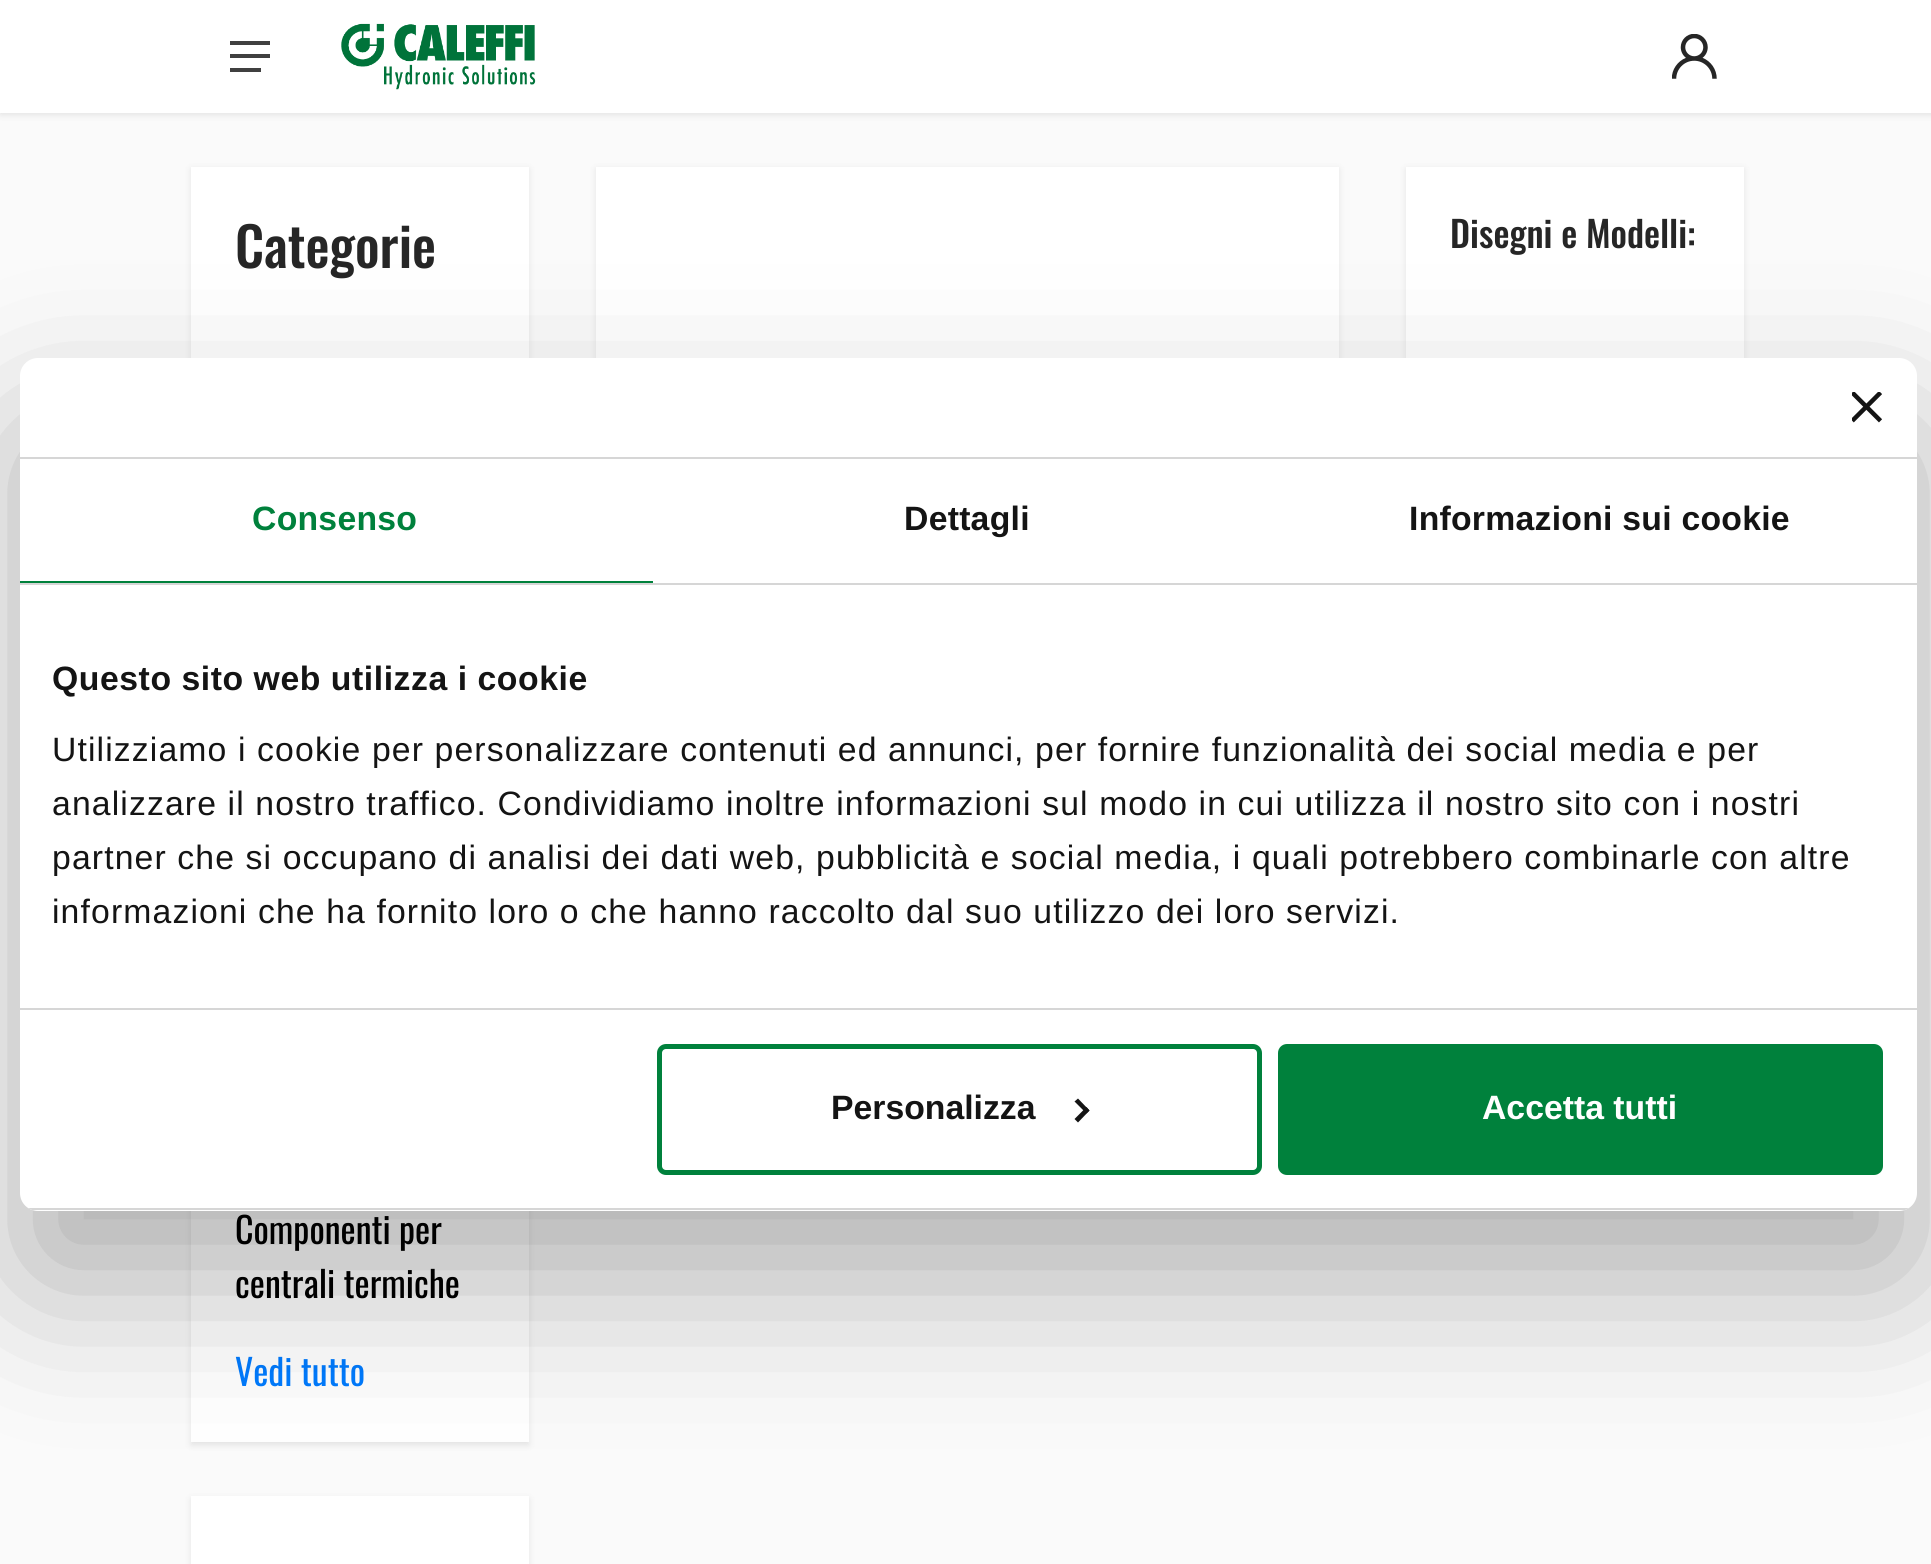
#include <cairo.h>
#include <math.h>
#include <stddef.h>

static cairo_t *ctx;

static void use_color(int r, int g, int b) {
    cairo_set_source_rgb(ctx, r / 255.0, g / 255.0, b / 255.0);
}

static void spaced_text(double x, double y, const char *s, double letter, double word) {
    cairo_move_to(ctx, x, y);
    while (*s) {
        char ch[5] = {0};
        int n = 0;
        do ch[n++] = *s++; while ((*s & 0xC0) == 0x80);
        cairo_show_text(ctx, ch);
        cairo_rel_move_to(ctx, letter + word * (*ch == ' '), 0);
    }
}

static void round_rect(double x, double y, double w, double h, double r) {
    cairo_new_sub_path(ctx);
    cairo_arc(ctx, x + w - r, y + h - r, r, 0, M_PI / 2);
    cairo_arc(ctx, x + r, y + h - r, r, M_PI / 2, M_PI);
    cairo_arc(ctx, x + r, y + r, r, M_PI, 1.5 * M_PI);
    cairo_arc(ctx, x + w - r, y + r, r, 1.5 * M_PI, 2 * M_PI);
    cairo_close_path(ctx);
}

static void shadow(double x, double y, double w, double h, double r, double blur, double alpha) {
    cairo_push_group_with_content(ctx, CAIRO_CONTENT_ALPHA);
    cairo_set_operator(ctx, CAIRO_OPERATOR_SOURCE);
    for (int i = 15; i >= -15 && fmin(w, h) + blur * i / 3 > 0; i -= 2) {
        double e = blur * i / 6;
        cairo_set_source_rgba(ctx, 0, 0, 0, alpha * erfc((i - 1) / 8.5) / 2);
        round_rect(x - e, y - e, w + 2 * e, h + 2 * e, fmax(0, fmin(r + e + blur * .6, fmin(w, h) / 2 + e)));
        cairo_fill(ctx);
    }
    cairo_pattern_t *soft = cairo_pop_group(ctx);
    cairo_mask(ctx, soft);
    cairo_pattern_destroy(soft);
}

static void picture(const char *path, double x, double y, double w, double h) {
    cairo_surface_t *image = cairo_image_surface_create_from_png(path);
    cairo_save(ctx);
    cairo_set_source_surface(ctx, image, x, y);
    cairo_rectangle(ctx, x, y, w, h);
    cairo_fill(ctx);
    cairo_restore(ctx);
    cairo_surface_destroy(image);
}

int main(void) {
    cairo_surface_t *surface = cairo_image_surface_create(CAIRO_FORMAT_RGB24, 1931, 1564);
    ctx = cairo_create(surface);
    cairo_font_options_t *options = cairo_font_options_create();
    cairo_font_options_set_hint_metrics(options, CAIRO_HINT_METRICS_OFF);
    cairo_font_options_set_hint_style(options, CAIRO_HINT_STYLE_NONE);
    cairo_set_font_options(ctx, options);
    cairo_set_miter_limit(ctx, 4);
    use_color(250, 250, 250);
    cairo_paint(ctx);
    use_color(0, 0, 0);
    shadow(0, 2, 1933, 113, 0, 3.5, 0.09);
    use_color(255, 255, 255);
    cairo_rectangle(ctx, 0, 0, 1931, 113);
    cairo_fill(ctx);
    cairo_save(ctx);
    cairo_rectangle(ctx, 230, 41, 40, 31);
    cairo_clip(ctx);
    use_color(64, 64, 64);
    cairo_new_path(ctx);
    cairo_move_to(ctx, 230, 58);
    cairo_line_to(ctx, 230, 54);
    cairo_line_to(ctx, 270, 54);
    cairo_line_to(ctx, 270, 58);
    cairo_close_path(ctx);
    cairo_move_to(ctx, 230, 40);
    cairo_line_to(ctx, 270, 40);
    cairo_line_to(ctx, 270, 45);
    cairo_line_to(ctx, 230, 45);
    cairo_close_path(ctx);
    cairo_move_to(ctx, 261, 72);
    cairo_line_to(ctx, 230, 72);
    cairo_line_to(ctx, 230, 68);
    cairo_line_to(ctx, 261, 68);
    cairo_close_path(ctx);
    cairo_fill(ctx);
    cairo_restore(ctx);
    picture("img1.png", 341, 23, 195, 67);
    picture("img2.png", 1672, 34, 45, 45);
    use_color(0, 0, 0);
    shadow(191, 169, 338, 1276, 0, 3.5, 0.09);
    use_color(255, 255, 255);
    cairo_rectangle(ctx, 191, 167, 338, 1275);
    cairo_fill(ctx);
    cairo_select_font_face(ctx, "Oswald Medium", CAIRO_FONT_SLANT_NORMAL, CAIRO_FONT_WEIGHT_NORMAL);
    cairo_set_font_size(ctx, 54);
    use_color(38, 38, 38);
    cairo_move_to(ctx, 235, 268);
    cairo_show_text(ctx, "Categorie");
    cairo_select_font_face(ctx, "Oswald", CAIRO_FONT_SLANT_NORMAL, CAIRO_FONT_WEIGHT_NORMAL);
    cairo_set_font_size(ctx, 36);
    use_color(0, 0, 0);
    cairo_move_to(ctx, 235, 1244);
    cairo_show_text(ctx, "Componenti per");
    cairo_move_to(ctx, 235, 1298);
    cairo_show_text(ctx, "centrali termiche");
    use_color(0, 123, 255);
    cairo_move_to(ctx, 235, 1386);
    cairo_show_text(ctx, "Vedi tutto");
    use_color(0, 0, 0);
    shadow(191, 1499, 338, 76, 0, 3.5, 0.09);
    use_color(255, 255, 255);
    cairo_rectangle(ctx, 191, 1496, 338, 68);
    cairo_fill(ctx);
    use_color(0, 0, 0);
    shadow(596, 169, 743, 355, 0, 3.5, 0.09);
    use_color(255, 255, 255);
    cairo_rectangle(ctx, 596, 167, 743, 191);
    cairo_fill(ctx);
    use_color(0, 0, 0);
    shadow(1406, 169, 338, 286, 0, 3.5, 0.09);
    use_color(255, 255, 255);
    cairo_rectangle(ctx, 1406, 167, 338, 191);
    cairo_fill(ctx);
    cairo_select_font_face(ctx, "Oswald Medium", CAIRO_FONT_SLANT_NORMAL, CAIRO_FONT_WEIGHT_NORMAL);
    use_color(38, 38, 38);
    cairo_move_to(ctx, 1450, 248);
    cairo_show_text(ctx, "Disegni e Modelli:");
    use_color(0, 0, 0);
    shadow(20, 430, 1897, 853, 18, 76.5, 0.3);
    use_color(255, 255, 255);
    round_rect(20, 358, 1897, 853, 18);
    cairo_fill(ctx);
    use_color(214, 214, 214);
    cairo_rectangle(ctx, 20, 457, 1897, 2);
    cairo_fill(ctx);
    picture("img3.png", 1852, 392, 30, 31);
    cairo_rectangle(ctx, 20, 583, 1897, 2);
    cairo_fill(ctx);
    use_color(0, 129, 60);
    cairo_rectangle(ctx, 20, 581, 633, 2);
    cairo_fill(ctx);
    cairo_select_font_face(ctx, "Liberation Sans", CAIRO_FONT_SLANT_NORMAL, CAIRO_FONT_WEIGHT_BOLD);
    cairo_set_font_size(ctx, 33.75);
    spaced_text(252, 530, "Consenso", 0.25, 0);
    use_color(20, 20, 20);
    spaced_text(904, 530, "Dettagli", 0.25, 0);
    spaced_text(1409, 530, "Informazioni sui cookie", 0.25, 0);
    use_color(214, 214, 214);
    cairo_rectangle(ctx, 20, 1008, 1897, 2);
    cairo_fill(ctx);
    use_color(20, 20, 20);
    spaced_text(52, 690, "Questo sito web utilizza i cookie", 0.55, 0);
    cairo_select_font_face(ctx, "Liberation Sans", CAIRO_FONT_SLANT_NORMAL, CAIRO_FONT_WEIGHT_NORMAL);
    spaced_text(52, 761, "Utilizziamo i cookie per personalizzare contenuti ed annunci, per fornire funzionalità dei social media e per", 1.12, 0);
    spaced_text(52, 815, "analizzare il nostro traffico. Condividiamo inoltre informazioni sul modo in cui utilizza il nostro sito con i nostri", 1.12, 0);
    spaced_text(52, 869, "partner che si occupano di analisi dei dati web, pubblicità e social media, i quali potrebbero combinarle con altre", 1.12, 0);
    spaced_text(52, 923, "informazioni che ha fornito loro o che hanno raccolto dal suo utilizzo dei loro servizi.", 1.12, 0);
    cairo_save(ctx);
    round_rect(20, 358, 1897, 853, 18);
    cairo_clip(ctx);
    use_color(214, 214, 214);
    cairo_rectangle(ctx, 20, 1208, 1897, 2);
    cairo_fill(ctx);
    cairo_restore(ctx);
    round_rect(659.5, 1046.5, 600, 126, 6.5);
    use_color(0, 129, 60);
    cairo_set_line_width(ctx, 5);
    cairo_stroke(ctx);
    cairo_select_font_face(ctx, "Liberation Sans", CAIRO_FONT_SLANT_NORMAL, CAIRO_FONT_WEIGHT_BOLD);
    use_color(20, 20, 20);
    cairo_move_to(ctx, 831, 1119);
    cairo_show_text(ctx, "Personalizza");
    cairo_new_path(ctx);
    cairo_move_to(ctx, 1078, 1098.5);
    cairo_line_to(ctx, 1089.5, 1110.5);
    cairo_line_to(ctx, 1086.5, 1113.5);
    cairo_line_to(ctx, 1074.5, 1101.5);
    cairo_close_path(ctx);
    cairo_fill(ctx);
    cairo_new_path(ctx);
    cairo_move_to(ctx, 1086.5, 1107);
    cairo_line_to(ctx, 1089.5, 1110.5);
    cairo_line_to(ctx, 1078, 1122.5);
    cairo_line_to(ctx, 1074.5, 1119);
    cairo_close_path(ctx);
    cairo_fill(ctx);
    use_color(0, 129, 60);
    round_rect(1280.5, 1046.5, 600, 126, 6.5);
    cairo_fill_preserve(ctx);
    cairo_stroke(ctx);
    use_color(255, 255, 255);
    cairo_move_to(ctx, 1482, 1119);
    cairo_show_text(ctx, "Accetta tutti");
    cairo_surface_write_to_png(surface, "result.png");
    cairo_font_options_destroy(options);
    cairo_destroy(ctx);
    cairo_surface_destroy(surface);
    return 0;
}
